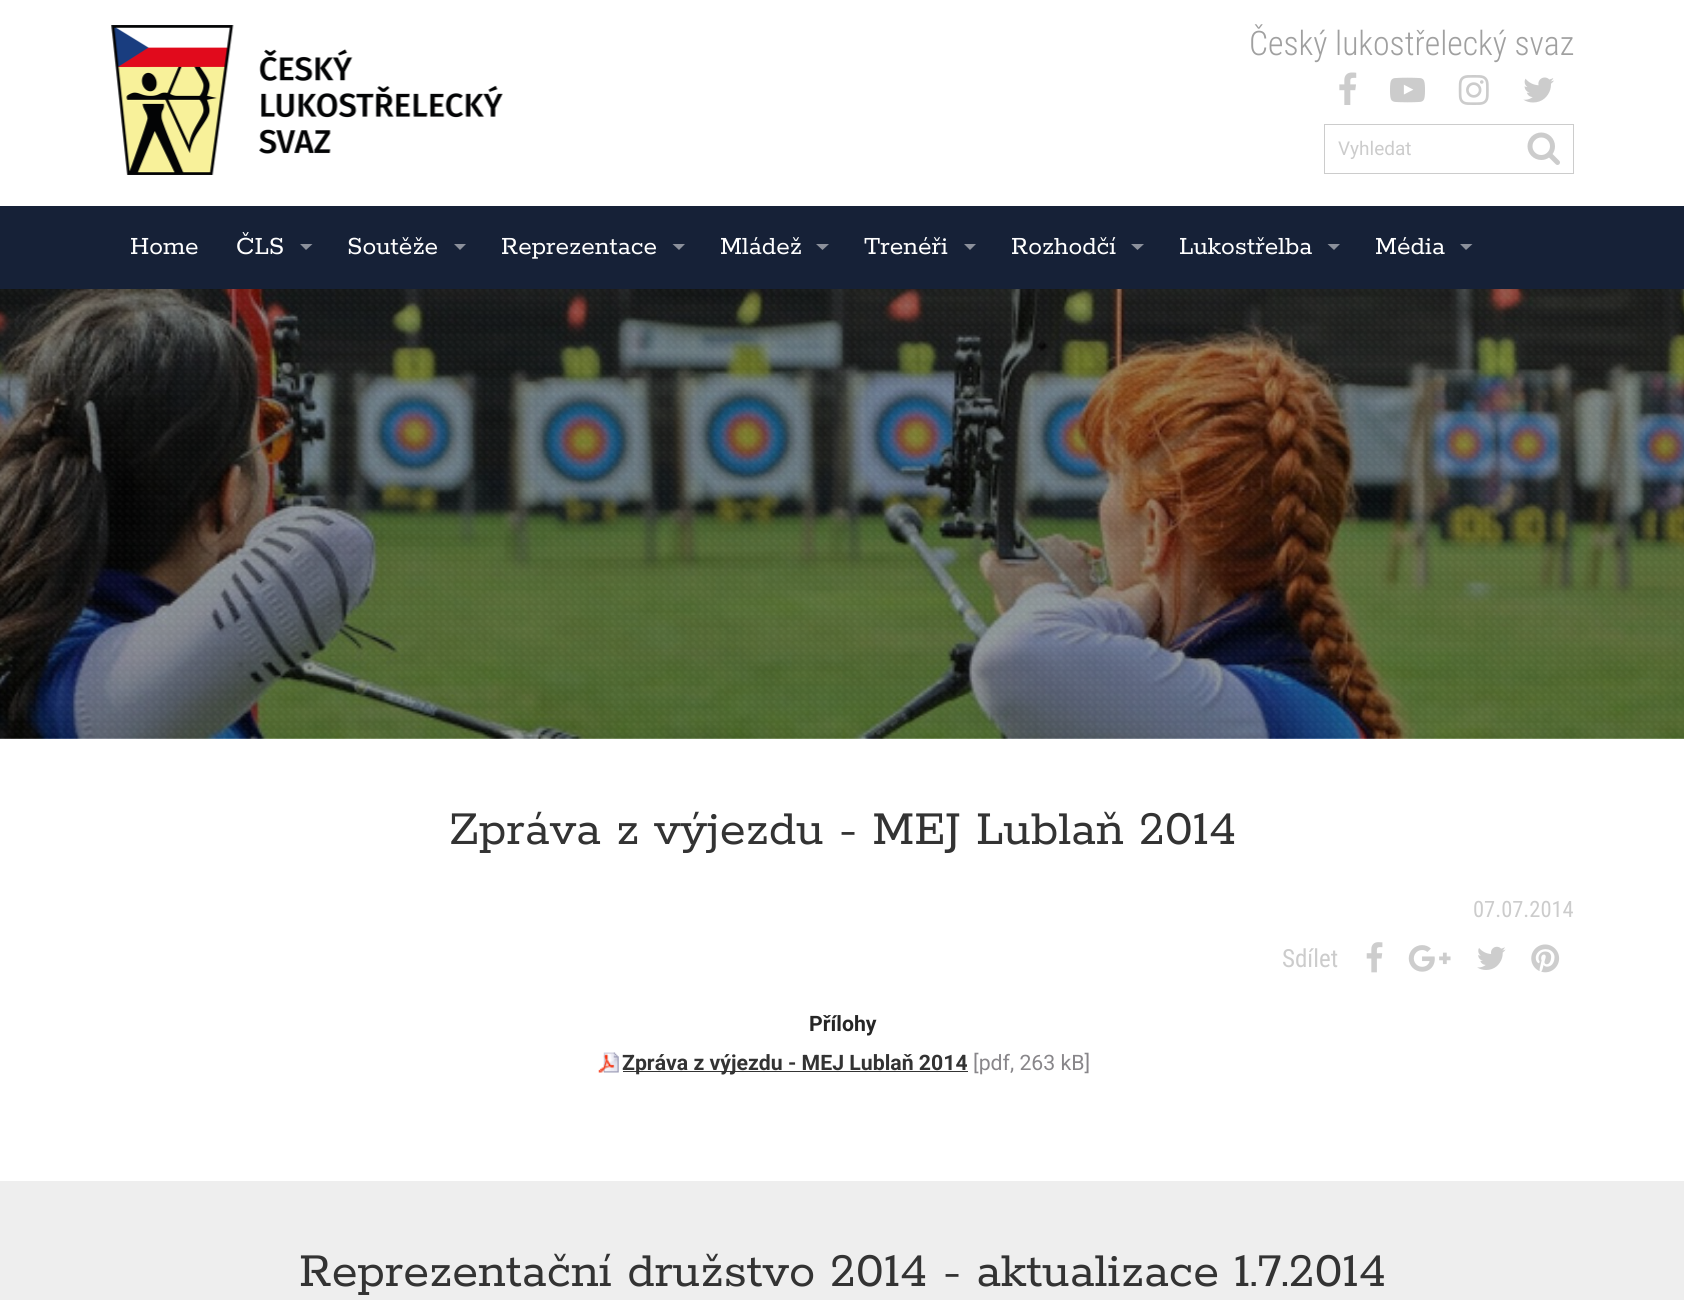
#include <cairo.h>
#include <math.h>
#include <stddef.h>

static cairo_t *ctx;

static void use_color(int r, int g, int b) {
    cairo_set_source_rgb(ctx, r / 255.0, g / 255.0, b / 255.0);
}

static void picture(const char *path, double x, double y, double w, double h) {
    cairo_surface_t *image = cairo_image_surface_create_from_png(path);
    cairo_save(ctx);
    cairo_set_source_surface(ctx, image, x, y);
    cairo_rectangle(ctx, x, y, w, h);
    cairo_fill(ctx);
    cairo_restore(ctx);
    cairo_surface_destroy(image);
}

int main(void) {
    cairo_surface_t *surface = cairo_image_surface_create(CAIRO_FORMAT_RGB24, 1684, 1300);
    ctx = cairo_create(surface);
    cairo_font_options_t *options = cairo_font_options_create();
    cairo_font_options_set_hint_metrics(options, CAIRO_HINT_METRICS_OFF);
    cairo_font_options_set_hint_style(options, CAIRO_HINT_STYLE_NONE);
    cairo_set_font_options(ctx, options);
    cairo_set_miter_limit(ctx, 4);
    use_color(255, 255, 255);
    cairo_paint(ctx);
    picture("img1.png", 111, 25, 392, 150);
    cairo_select_font_face(ctx, "Roboto Condensed Light", CAIRO_FONT_SLANT_NORMAL, CAIRO_FONT_WEIGHT_NORMAL);
    cairo_set_font_size(ctx, 33.75);
    use_color(160, 160, 160);
    cairo_move_to(ctx, 1249, 55);
    cairo_show_text(ctx, "Český lukostřelecký svaz");
    picture("img2.png", 1339, 72, 18, 33);
    picture("img3.png", 1390, 77, 35, 26);
    picture("img4.png", 1458, 75, 31, 30);
    picture("img5.png", 1523, 77, 31, 26);
    cairo_rectangle(ctx, 1324.5, 124.5, 249, 49);
    use_color(204, 204, 204);
    cairo_set_line_width(ctx, 1);
    cairo_stroke(ctx);
    cairo_select_font_face(ctx, "Roboto", CAIRO_FONT_SLANT_NORMAL, CAIRO_FONT_WEIGHT_NORMAL);
    cairo_set_font_size(ctx, 19);
    cairo_move_to(ctx, 1338, 155);
    cairo_show_text(ctx, "Vyhledat");
    picture("img6.png", 1527, 132, 33, 33);
    use_color(22, 33, 55);
    cairo_rectangle(ctx, 0, 206, 1684, 83);
    cairo_fill(ctx);
    cairo_select_font_face(ctx, "Rokkitt", CAIRO_FONT_SLANT_NORMAL, CAIRO_FONT_WEIGHT_NORMAL);
    cairo_set_font_size(ctx, 27.5);
    use_color(255, 255, 255);
    cairo_move_to(ctx, 130, 254);
    cairo_show_text(ctx, "Home");
    cairo_move_to(ctx, 236, 254);
    cairo_show_text(ctx, "ČLS");
    use_color(139, 144, 155);
    cairo_new_path(ctx);
    cairo_move_to(ctx, 300, 244);
    cairo_line_to(ctx, 312.5, 244);
    cairo_line_to(ctx, 306, 250);
    cairo_close_path(ctx);
    cairo_fill(ctx);
    use_color(255, 255, 255);
    cairo_move_to(ctx, 347, 254);
    cairo_show_text(ctx, "Soutěže");
    use_color(139, 144, 155);
    cairo_new_path(ctx);
    cairo_move_to(ctx, 454, 244);
    cairo_line_to(ctx, 466, 244);
    cairo_line_to(ctx, 460, 250);
    cairo_close_path(ctx);
    cairo_fill(ctx);
    use_color(255, 255, 255);
    cairo_move_to(ctx, 501, 254);
    cairo_show_text(ctx, "Reprezentace");
    use_color(139, 144, 155);
    cairo_new_path(ctx);
    cairo_move_to(ctx, 672.5, 244);
    cairo_line_to(ctx, 685, 244);
    cairo_line_to(ctx, 679, 250);
    cairo_close_path(ctx);
    cairo_fill(ctx);
    use_color(255, 255, 255);
    cairo_move_to(ctx, 720, 254);
    cairo_show_text(ctx, "Mládež");
    use_color(139, 144, 155);
    cairo_new_path(ctx);
    cairo_move_to(ctx, 816, 244);
    cairo_line_to(ctx, 829, 244);
    cairo_line_to(ctx, 822.5, 250);
    cairo_close_path(ctx);
    cairo_fill(ctx);
    use_color(255, 255, 255);
    cairo_move_to(ctx, 864, 254);
    cairo_show_text(ctx, "Trenéři");
    use_color(139, 144, 155);
    cairo_new_path(ctx);
    cairo_move_to(ctx, 964, 244);
    cairo_line_to(ctx, 976, 244);
    cairo_line_to(ctx, 970, 250);
    cairo_close_path(ctx);
    cairo_fill(ctx);
    use_color(255, 255, 255);
    cairo_move_to(ctx, 1011, 254);
    cairo_show_text(ctx, "Rozhodčí");
    use_color(139, 144, 155);
    cairo_new_path(ctx);
    cairo_move_to(ctx, 1131, 244);
    cairo_line_to(ctx, 1144, 244);
    cairo_line_to(ctx, 1137.5, 250);
    cairo_close_path(ctx);
    cairo_fill(ctx);
    use_color(255, 255, 255);
    cairo_move_to(ctx, 1179, 254);
    cairo_show_text(ctx, "Lukostřelba");
    use_color(139, 144, 155);
    cairo_new_path(ctx);
    cairo_move_to(ctx, 1327.5, 244);
    cairo_line_to(ctx, 1340, 244);
    cairo_line_to(ctx, 1334, 250);
    cairo_close_path(ctx);
    cairo_fill(ctx);
    use_color(255, 255, 255);
    cairo_move_to(ctx, 1375, 254);
    cairo_show_text(ctx, "Média");
    use_color(139, 144, 155);
    cairo_new_path(ctx);
    cairo_move_to(ctx, 1460, 244);
    cairo_line_to(ctx, 1472.5, 244);
    cairo_line_to(ctx, 1466, 250);
    cairo_close_path(ctx);
    cairo_fill(ctx);
    picture("img7.png", 0, 289, 1684, 450);
    picture("img8.png", 0, 289, 1684, 450);
    cairo_set_font_size(ctx, 52.5);
    use_color(51, 51, 51);
    cairo_move_to(ctx, 448, 844);
    cairo_show_text(ctx, "Zpráva z výjezdu - MEJ Lublaň 2014");
    cairo_select_font_face(ctx, "Roboto Condensed", CAIRO_FONT_SLANT_NORMAL, CAIRO_FONT_WEIGHT_NORMAL);
    cairo_set_font_size(ctx, 22.5);
    use_color(204, 204, 204);
    cairo_move_to(ctx, 1473, 917);
    cairo_show_text(ctx, "07.07.2014");
    cairo_set_font_size(ctx, 25);
    cairo_move_to(ctx, 1282, 967);
    cairo_show_text(ctx, "Sdílet");
    picture("img9.png", 1366, 942, 17, 31);
    picture("img10.png", 1408, 945, 43, 27);
    picture("img11.png", 1477, 946, 29, 24);
    picture("img12.png", 1531, 944, 29, 29);
    cairo_select_font_face(ctx, "Roboto", CAIRO_FONT_SLANT_NORMAL, CAIRO_FONT_WEIGHT_BOLD);
    cairo_set_font_size(ctx, 21.25);
    use_color(38, 38, 38);
    cairo_move_to(ctx, 809, 1031);
    cairo_show_text(ctx, "Přílohy");
    picture("img13.png", 598, 1052, 21, 21);
    use_color(52, 52, 52);
    cairo_rectangle(ctx, 623, 1071, 345, 1);
    cairo_fill(ctx);
    use_color(51, 51, 51);
    cairo_move_to(ctx, 622, 1070);
    cairo_show_text(ctx, "Zpráva z výjezdu - MEJ Lublaň 2014");
    cairo_select_font_face(ctx, "Roboto", CAIRO_FONT_SLANT_NORMAL, CAIRO_FONT_WEIGHT_NORMAL);
    use_color(136, 134, 138);
    cairo_move_to(ctx, 973, 1070);
    cairo_show_text(ctx, "[pdf, 263 kB]");
    use_color(238, 238, 238);
    cairo_rectangle(ctx, 0, 1181, 1684, 119);
    cairo_fill(ctx);
    cairo_select_font_face(ctx, "Rokkitt", CAIRO_FONT_SLANT_NORMAL, CAIRO_FONT_WEIGHT_NORMAL);
    cairo_set_font_size(ctx, 52.5);
    use_color(51, 51, 51);
    cairo_move_to(ctx, 299, 1286);
    cairo_show_text(ctx, "Reprezentační družstvo 2014 - aktualizace 1.7.2014");
    cairo_surface_write_to_png(surface, "result.png");
    cairo_font_options_destroy(options);
    cairo_destroy(ctx);
    cairo_surface_destroy(surface);
    return 0;
}
